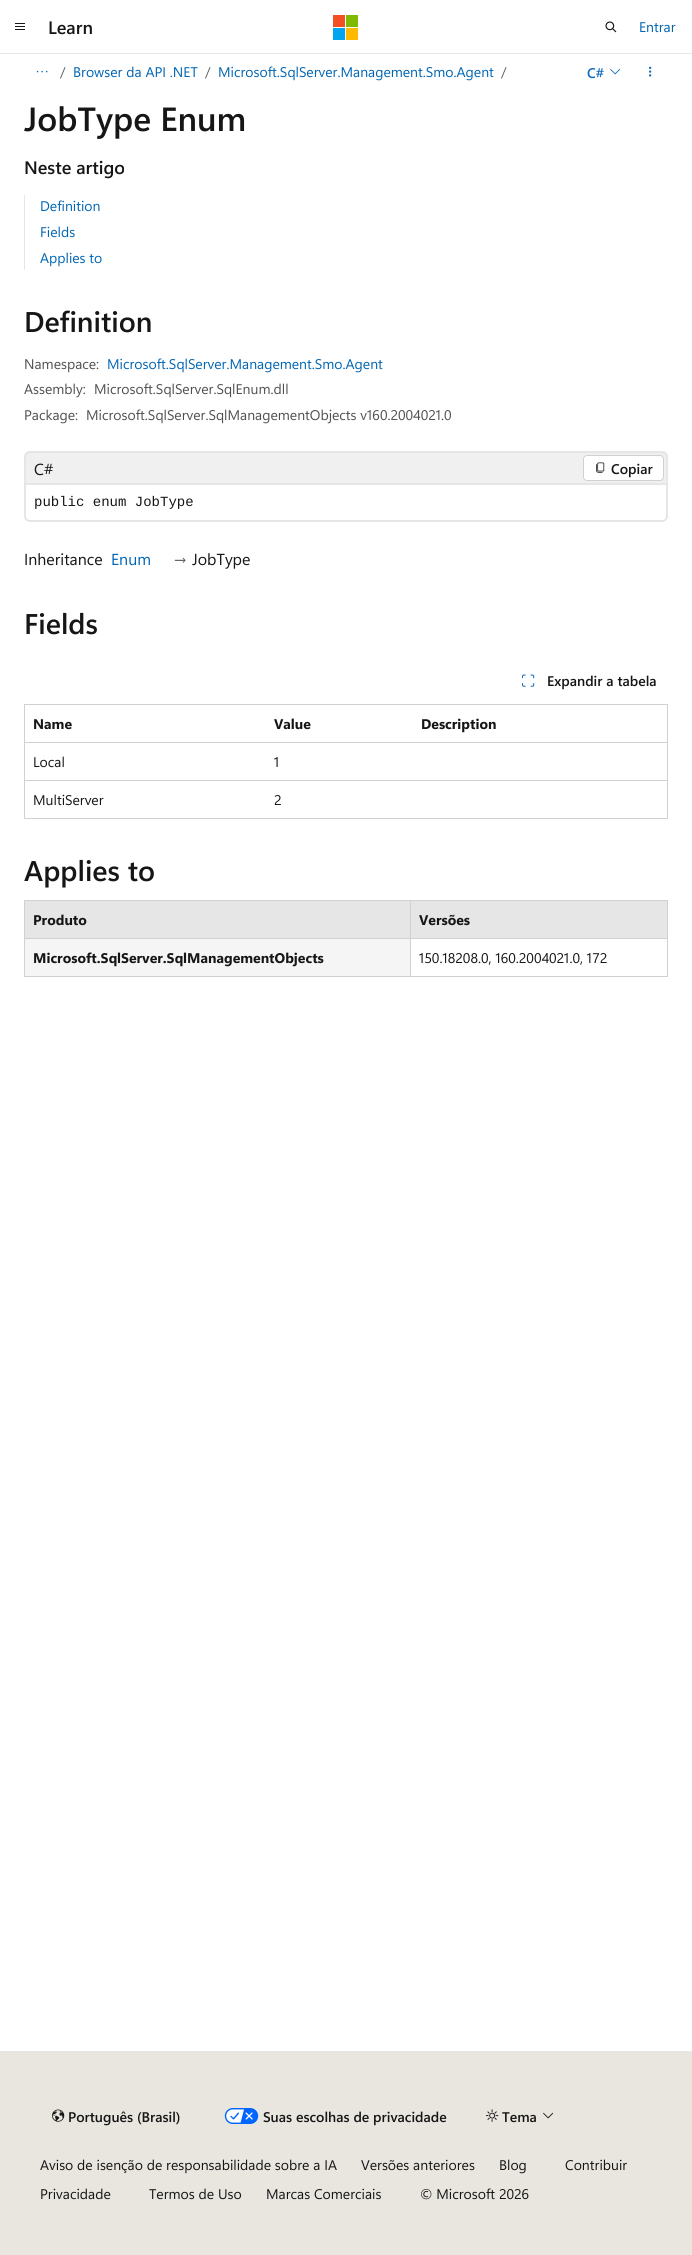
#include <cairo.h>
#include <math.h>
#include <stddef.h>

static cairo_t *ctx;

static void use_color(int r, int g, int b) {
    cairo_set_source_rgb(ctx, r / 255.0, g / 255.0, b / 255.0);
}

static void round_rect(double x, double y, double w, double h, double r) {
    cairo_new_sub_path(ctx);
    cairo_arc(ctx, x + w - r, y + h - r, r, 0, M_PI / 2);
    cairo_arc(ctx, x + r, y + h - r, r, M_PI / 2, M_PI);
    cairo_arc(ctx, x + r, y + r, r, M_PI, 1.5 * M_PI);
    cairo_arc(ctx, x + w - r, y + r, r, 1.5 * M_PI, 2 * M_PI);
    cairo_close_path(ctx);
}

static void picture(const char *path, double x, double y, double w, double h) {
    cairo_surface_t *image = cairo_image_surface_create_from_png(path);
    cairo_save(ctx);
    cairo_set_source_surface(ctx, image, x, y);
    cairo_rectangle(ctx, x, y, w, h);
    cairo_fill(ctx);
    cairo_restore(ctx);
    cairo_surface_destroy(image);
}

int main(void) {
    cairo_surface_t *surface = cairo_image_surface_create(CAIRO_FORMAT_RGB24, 692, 2255);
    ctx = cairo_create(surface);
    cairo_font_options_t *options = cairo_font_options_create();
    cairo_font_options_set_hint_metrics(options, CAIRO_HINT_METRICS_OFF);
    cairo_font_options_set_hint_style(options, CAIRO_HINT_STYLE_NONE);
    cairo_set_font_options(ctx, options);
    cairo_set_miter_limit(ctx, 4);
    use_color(255, 255, 255);
    cairo_paint(ctx);
    use_color(230, 230, 230);
    cairo_rectangle(ctx, 0, 53, 692, 1);
    cairo_fill(ctx);
    picture("img1.png", 15, 23, 10, 7);
    cairo_select_font_face(ctx, "Segoe UI SemiBold", CAIRO_FONT_SLANT_NORMAL, CAIRO_FONT_WEIGHT_NORMAL);
    cairo_set_font_size(ctx, 18);
    use_color(22, 22, 22);
    cairo_move_to(ctx, 48, 34);
    cairo_show_text(ctx, "Learn");
    use_color(242, 80, 34);
    cairo_rectangle(ctx, 333, 15, 12, 12);
    cairo_fill(ctx);
    use_color(127, 186, 0);
    cairo_rectangle(ctx, 346, 15, 12, 12);
    cairo_fill(ctx);
    use_color(0, 164, 239);
    cairo_rectangle(ctx, 333, 28, 12, 12);
    cairo_fill(ctx);
    use_color(255, 185, 0);
    cairo_rectangle(ctx, 346, 28, 12, 12);
    cairo_fill(ctx);
    picture("img2.png", 605, 21, 12, 12);
    cairo_select_font_face(ctx, "Segoe UI", CAIRO_FONT_SLANT_NORMAL, CAIRO_FONT_WEIGHT_NORMAL);
    cairo_set_font_size(ctx, 14);
    use_color(0, 101, 179);
    cairo_move_to(ctx, 639, 32);
    cairo_show_text(ctx, "Entrar");
    picture("img3.png", 36, 70, 12, 3);
    use_color(80, 80, 80);
    cairo_move_to(ctx, 60, 77);
    cairo_show_text(ctx, "/");
    use_color(0, 101, 179);
    cairo_move_to(ctx, 73, 77);
    cairo_show_text(ctx, "Browser da API .NET");
    use_color(80, 80, 80);
    cairo_move_to(ctx, 205, 77);
    cairo_show_text(ctx, "/");
    use_color(0, 101, 179);
    cairo_move_to(ctx, 218, 77);
    cairo_show_text(ctx, "Microsoft.SqlServer.Management.Smo.Agent");
    use_color(80, 80, 80);
    cairo_move_to(ctx, 501, 77);
    cairo_show_text(ctx, "/");
    cairo_select_font_face(ctx, "Segoe UI SemiBold", CAIRO_FONT_SLANT_NORMAL, CAIRO_FONT_WEIGHT_NORMAL);
    use_color(15, 108, 189);
    cairo_move_to(ctx, 587, 78);
    cairo_show_text(ctx, "C#");
    picture("img4.png", 610, 68, 11, 7);
    picture("img5.png", 649, 66, 3, 11);
    cairo_set_font_size(ctx, 33.5);
    use_color(22, 22, 22);
    cairo_move_to(ctx, 24, 131);
    cairo_show_text(ctx, "JobType Enum");
    cairo_set_font_size(ctx, 18);
    cairo_move_to(ctx, 24, 174);
    cairo_show_text(ctx, "Neste artigo");
    use_color(230, 230, 230);
    cairo_rectangle(ctx, 24, 195, 1, 75);
    cairo_fill(ctx);
    cairo_select_font_face(ctx, "Segoe UI", CAIRO_FONT_SLANT_NORMAL, CAIRO_FONT_WEIGHT_NORMAL);
    cairo_set_font_size(ctx, 14);
    use_color(0, 101, 179);
    cairo_move_to(ctx, 40, 211);
    cairo_show_text(ctx, "Definition");
    cairo_move_to(ctx, 40, 237);
    cairo_show_text(ctx, "Fields");
    cairo_move_to(ctx, 40, 263);
    cairo_show_text(ctx, "Applies to");
    cairo_select_font_face(ctx, "Segoe UI SemiBold", CAIRO_FONT_SLANT_NORMAL, CAIRO_FONT_WEIGHT_NORMAL);
    cairo_set_font_size(ctx, 28.5);
    use_color(22, 22, 22);
    cairo_move_to(ctx, 24, 332);
    cairo_show_text(ctx, "Definition");
    cairo_select_font_face(ctx, "Segoe UI", CAIRO_FONT_SLANT_NORMAL, CAIRO_FONT_WEIGHT_NORMAL);
    cairo_set_font_size(ctx, 14);
    use_color(80, 80, 80);
    cairo_move_to(ctx, 24, 369);
    cairo_show_text(ctx, "Namespace:");
    use_color(0, 101, 179);
    cairo_move_to(ctx, 107, 369);
    cairo_show_text(ctx, "Microsoft.SqlServer.Management.Smo.Agent");
    use_color(80, 80, 80);
    cairo_move_to(ctx, 24, 394);
    cairo_show_text(ctx, "Assembly:");
    cairo_move_to(ctx, 94, 394);
    cairo_show_text(ctx, "Microsoft.SqlServer.SqlEnum.dll");
    cairo_move_to(ctx, 24, 420);
    cairo_show_text(ctx, "Package:");
    cairo_move_to(ctx, 86, 420);
    cairo_show_text(ctx, "Microsoft.SqlServer.SqlManagementObjects v160.2004021.0");
    use_color(240, 240, 240);
    cairo_new_path(ctx);
    cairo_move_to(ctx, 30, 451);
    cairo_line_to(ctx, 662, 451);
    cairo_curve_to(ctx, 665.5, 451, 668, 453.5, 668, 457);
    cairo_line_to(ctx, 668, 483);
    cairo_line_to(ctx, 24, 483);
    cairo_line_to(ctx, 24, 457);
    cairo_curve_to(ctx, 24, 453.5, 26.5, 451, 30, 451);
    cairo_close_path(ctx);
    cairo_fill(ctx);
    use_color(230, 230, 230);
    cairo_set_fill_rule(ctx, CAIRO_FILL_RULE_EVEN_ODD);
    cairo_new_path(ctx);
    cairo_move_to(ctx, 30, 451);
    cairo_line_to(ctx, 662, 451);
    cairo_curve_to(ctx, 665, 451, 668, 454, 668, 457);
    cairo_line_to(ctx, 668, 483);
    cairo_line_to(ctx, 24, 483);
    cairo_line_to(ctx, 24, 457);
    cairo_curve_to(ctx, 24, 454, 27, 451, 30, 451);
    cairo_close_path(ctx);
    cairo_move_to(ctx, 30, 453);
    cairo_line_to(ctx, 662, 453);
    cairo_curve_to(ctx, 664, 453, 666, 455, 666, 457);
    cairo_line_to(ctx, 666, 483);
    cairo_line_to(ctx, 26, 483);
    cairo_line_to(ctx, 26, 457);
    cairo_curve_to(ctx, 26, 455, 28, 453, 30, 453);
    cairo_close_path(ctx);
    cairo_fill(ctx);
    cairo_set_font_size(ctx, 16);
    use_color(22, 22, 22);
    cairo_move_to(ctx, 34, 475);
    cairo_show_text(ctx, "C#");
    use_color(255, 255, 255);
    round_rect(583.5, 455.5, 80, 25, 3.5);
    cairo_fill_preserve(ctx);
    use_color(209, 209, 209);
    cairo_set_line_width(ctx, 1);
    cairo_stroke(ctx);
    picture("img6.png", 596, 462, 9, 11);
    cairo_select_font_face(ctx, "Segoe UI SemiBold", CAIRO_FONT_SLANT_NORMAL, CAIRO_FONT_WEIGHT_NORMAL);
    cairo_set_font_size(ctx, 14);
    use_color(22, 22, 22);
    cairo_move_to(ctx, 611, 474);
    cairo_show_text(ctx, "Copiar");
    cairo_new_path(ctx);
    cairo_move_to(ctx, 25, 484);
    cairo_line_to(ctx, 667, 484);
    cairo_line_to(ctx, 667, 516);
    cairo_curve_to(ctx, 667, 519, 665, 521, 662, 521);
    cairo_line_to(ctx, 30, 521);
    cairo_curve_to(ctx, 27, 521, 25, 519, 25, 516);
    cairo_close_path(ctx);
    use_color(230, 230, 230);
    cairo_set_line_width(ctx, 2);
    cairo_stroke(ctx);
    cairo_select_font_face(ctx, "Liberation Mono", CAIRO_FONT_SLANT_NORMAL, CAIRO_FONT_WEIGHT_NORMAL);
    use_color(22, 22, 22);
    cairo_move_to(ctx, 34, 506);
    cairo_show_text(ctx, "public enum JobType");
    cairo_select_font_face(ctx, "Segoe UI", CAIRO_FONT_SLANT_NORMAL, CAIRO_FONT_WEIGHT_NORMAL);
    cairo_set_font_size(ctx, 16);
    cairo_move_to(ctx, 24, 565);
    cairo_show_text(ctx, "Inheritance");
    use_color(0, 101, 179);
    cairo_move_to(ctx, 111, 565);
    cairo_show_text(ctx, "Enum");
    use_color(80, 80, 80);
    cairo_move_to(ctx, 173, 565);
    cairo_show_text(ctx, "→");
    use_color(22, 22, 22);
    cairo_move_to(ctx, 192, 565);
    cairo_show_text(ctx, "JobType");
    cairo_select_font_face(ctx, "Segoe UI SemiBold", CAIRO_FONT_SLANT_NORMAL, CAIRO_FONT_WEIGHT_NORMAL);
    cairo_set_font_size(ctx, 28.5);
    cairo_move_to(ctx, 24, 634);
    cairo_show_text(ctx, "Fields");
    picture("img7.png", 522, 674, 13, 13);
    cairo_set_font_size(ctx, 14);
    cairo_move_to(ctx, 547, 686);
    cairo_show_text(ctx, "Expandir a tabela");
    use_color(209, 209, 209);
    cairo_rectangle(ctx, 24, 704, 644, 1);
    cairo_fill(ctx);
    cairo_rectangle(ctx, 667, 704, 1, 115);
    cairo_fill(ctx);
    cairo_rectangle(ctx, 24, 818, 644, 1);
    cairo_fill(ctx);
    cairo_rectangle(ctx, 24, 704, 1, 115);
    cairo_fill(ctx);
    cairo_select_font_face(ctx, "Segoe UI", CAIRO_FONT_SLANT_NORMAL, CAIRO_FONT_WEIGHT_BOLD);
    use_color(22, 22, 22);
    cairo_move_to(ctx, 33, 729);
    cairo_show_text(ctx, "Name");
    cairo_move_to(ctx, 274, 729);
    cairo_show_text(ctx, "Value");
    cairo_move_to(ctx, 421, 729);
    cairo_show_text(ctx, "Description");
    use_color(209, 209, 209);
    cairo_rectangle(ctx, 24, 742, 644, 1);
    cairo_fill(ctx);
    cairo_select_font_face(ctx, "Segoe UI", CAIRO_FONT_SLANT_NORMAL, CAIRO_FONT_WEIGHT_NORMAL);
    use_color(22, 22, 22);
    cairo_move_to(ctx, 33, 767);
    cairo_show_text(ctx, "Local");
    cairo_move_to(ctx, 274, 767);
    cairo_show_text(ctx, "1");
    use_color(209, 209, 209);
    cairo_rectangle(ctx, 24, 780, 644, 1);
    cairo_fill(ctx);
    use_color(22, 22, 22);
    cairo_move_to(ctx, 33, 805);
    cairo_show_text(ctx, "MultiServer");
    cairo_move_to(ctx, 274, 805);
    cairo_show_text(ctx, "2");
    cairo_select_font_face(ctx, "Segoe UI SemiBold", CAIRO_FONT_SLANT_NORMAL, CAIRO_FONT_WEIGHT_NORMAL);
    cairo_set_font_size(ctx, 28.5);
    cairo_move_to(ctx, 24, 881);
    cairo_show_text(ctx, "Applies to");
    use_color(209, 209, 209);
    cairo_rectangle(ctx, 24, 900, 644, 1);
    cairo_fill(ctx);
    cairo_rectangle(ctx, 667, 900, 1, 77);
    cairo_fill(ctx);
    cairo_rectangle(ctx, 24, 976, 644, 1);
    cairo_fill(ctx);
    cairo_rectangle(ctx, 24, 900, 1, 77);
    cairo_fill(ctx);
    use_color(230, 230, 230);
    cairo_rectangle(ctx, 25, 901, 642, 37);
    cairo_fill(ctx);
    cairo_select_font_face(ctx, "Segoe UI", CAIRO_FONT_SLANT_NORMAL, CAIRO_FONT_WEIGHT_BOLD);
    cairo_set_font_size(ctx, 14);
    use_color(22, 22, 22);
    cairo_move_to(ctx, 33, 925);
    cairo_show_text(ctx, "Produto");
    use_color(209, 209, 209);
    cairo_rectangle(ctx, 410, 938, 258, 1);
    cairo_fill(ctx);
    cairo_rectangle(ctx, 410, 938, 1, 39);
    cairo_fill(ctx);
    cairo_rectangle(ctx, 24, 938, 387, 1);
    cairo_fill(ctx);
    cairo_rectangle(ctx, 410, 900, 1, 39);
    cairo_fill(ctx);
    use_color(22, 22, 22);
    cairo_move_to(ctx, 419, 925);
    cairo_show_text(ctx, "Versões");
    use_color(245, 245, 245);
    cairo_rectangle(ctx, 25, 939, 385, 37);
    cairo_fill(ctx);
    use_color(22, 22, 22);
    cairo_move_to(ctx, 33, 963);
    cairo_show_text(ctx, "Microsoft.SqlServer.SqlManagementObjects");
    cairo_select_font_face(ctx, "Segoe UI", CAIRO_FONT_SLANT_NORMAL, CAIRO_FONT_WEIGHT_NORMAL);
    cairo_move_to(ctx, 419, 963);
    cairo_show_text(ctx, "150.18208.0, 160.2004021.0, 172");
    use_color(232, 230, 223);
    cairo_rectangle(ctx, 0, 2052, 692, 203);
    cairo_fill(ctx);
    use_color(230, 230, 230);
    cairo_rectangle(ctx, 0, 2051, 692, 1);
    cairo_fill(ctx);
    picture("img8.png", 52, 2109, 13, 13);
    cairo_select_font_face(ctx, "Segoe UI SemiBold", CAIRO_FONT_SLANT_NORMAL, CAIRO_FONT_WEIGHT_NORMAL);
    use_color(22, 22, 22);
    cairo_move_to(ctx, 68, 2122);
    cairo_show_text(ctx, "Português (Brasil)");
    picture("img9.png", 224, 2108, 35, 16);
    cairo_move_to(ctx, 263, 2122);
    cairo_show_text(ctx, "Suas escolhas de privacidade");
    picture("img10.png", 486, 2109, 13, 13);
    cairo_move_to(ctx, 502, 2122);
    cairo_show_text(ctx, "Tema");
    picture("img11.png", 543, 2112, 11, 7);
    cairo_select_font_face(ctx, "Segoe UI", CAIRO_FONT_SLANT_NORMAL, CAIRO_FONT_WEIGHT_NORMAL);
    cairo_move_to(ctx, 40, 2170);
    cairo_show_text(ctx, "Aviso de isenção de responsabilidade sobre a IA");
    cairo_move_to(ctx, 361, 2170);
    cairo_show_text(ctx, "Versões anteriores");
    cairo_move_to(ctx, 499, 2170);
    cairo_show_text(ctx, "Blog");
    cairo_move_to(ctx, 565, 2170);
    cairo_show_text(ctx, "Contribuir");
    cairo_move_to(ctx, 40, 2199);
    cairo_show_text(ctx, "Privacidade");
    cairo_move_to(ctx, 149, 2199);
    cairo_show_text(ctx, "Termos de Uso");
    cairo_move_to(ctx, 266, 2199);
    cairo_show_text(ctx, "Marcas Comerciais");
    cairo_move_to(ctx, 420, 2199);
    cairo_show_text(ctx, "© Microsoft 2026");
    cairo_surface_write_to_png(surface, "result.png");
    cairo_font_options_destroy(options);
    cairo_destroy(ctx);
    cairo_surface_destroy(surface);
    return 0;
}
